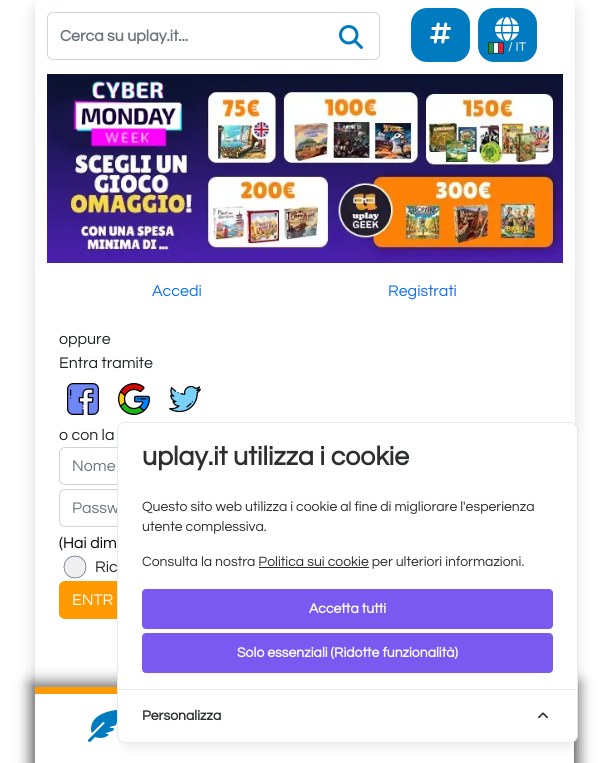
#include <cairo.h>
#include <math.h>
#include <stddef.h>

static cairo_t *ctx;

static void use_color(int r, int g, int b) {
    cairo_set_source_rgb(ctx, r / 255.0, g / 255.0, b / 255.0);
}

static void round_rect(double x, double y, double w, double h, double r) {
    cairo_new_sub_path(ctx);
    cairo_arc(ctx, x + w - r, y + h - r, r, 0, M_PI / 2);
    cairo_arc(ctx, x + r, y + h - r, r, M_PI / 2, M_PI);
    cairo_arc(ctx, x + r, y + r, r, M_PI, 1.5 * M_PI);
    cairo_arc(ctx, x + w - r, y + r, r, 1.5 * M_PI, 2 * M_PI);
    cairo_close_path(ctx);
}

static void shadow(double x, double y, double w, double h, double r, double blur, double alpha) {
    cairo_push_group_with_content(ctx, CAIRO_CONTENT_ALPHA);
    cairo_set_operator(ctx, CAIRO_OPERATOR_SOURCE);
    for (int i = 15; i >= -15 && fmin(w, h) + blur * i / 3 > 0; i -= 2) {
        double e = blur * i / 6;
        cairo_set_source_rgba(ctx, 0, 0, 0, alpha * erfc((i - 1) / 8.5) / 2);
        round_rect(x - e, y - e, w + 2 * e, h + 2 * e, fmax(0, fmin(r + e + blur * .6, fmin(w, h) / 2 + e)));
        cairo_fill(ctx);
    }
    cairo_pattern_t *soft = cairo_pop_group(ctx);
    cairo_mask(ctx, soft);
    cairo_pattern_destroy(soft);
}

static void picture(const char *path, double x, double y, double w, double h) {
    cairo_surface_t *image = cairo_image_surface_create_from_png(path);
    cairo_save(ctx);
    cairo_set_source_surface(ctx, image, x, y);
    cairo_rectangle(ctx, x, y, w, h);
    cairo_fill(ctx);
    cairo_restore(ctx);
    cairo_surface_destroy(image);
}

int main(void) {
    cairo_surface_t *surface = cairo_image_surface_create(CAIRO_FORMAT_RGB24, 609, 763);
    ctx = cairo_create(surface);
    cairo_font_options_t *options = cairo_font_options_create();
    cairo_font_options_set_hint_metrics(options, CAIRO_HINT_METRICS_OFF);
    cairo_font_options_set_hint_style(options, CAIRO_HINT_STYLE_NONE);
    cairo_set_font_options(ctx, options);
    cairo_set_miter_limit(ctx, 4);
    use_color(255, 255, 255);
    cairo_paint(ctx);
    cairo_save(ctx);
    cairo_set_fill_rule(ctx, CAIRO_FILL_RULE_EVEN_ODD);
    cairo_new_path(ctx);
    cairo_move_to(ctx, 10, 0);
    cairo_line_to(ctx, 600, 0);
    cairo_line_to(ctx, 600, 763);
    cairo_line_to(ctx, 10, 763);
    cairo_close_path(ctx);
    cairo_move_to(ctx, 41, 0);
    cairo_line_to(ctx, 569, 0);
    cairo_curve_to(ctx, 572.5, 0, 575, 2.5, 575, 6);
    cairo_line_to(ctx, 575, 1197);
    cairo_curve_to(ctx, 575, 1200.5, 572.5, 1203, 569, 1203);
    cairo_line_to(ctx, 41, 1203);
    cairo_curve_to(ctx, 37.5, 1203, 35, 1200.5, 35, 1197);
    cairo_line_to(ctx, 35, 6);
    cairo_curve_to(ctx, 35, 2.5, 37.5, 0, 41, 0);
    cairo_close_path(ctx);
    cairo_clip(ctx);
    use_color(0, 0, 0);
    shadow(35, 8, 540, 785, 6, 8, 0.15);
    cairo_restore(ctx);
    round_rect(47.5, 12.5, 332, 47, 5.5);
    use_color(206, 212, 218);
    cairo_set_line_width(ctx, 1);
    cairo_stroke(ctx);
    cairo_save(ctx);
    cairo_rectangle(ctx, 60, 28, 307, 16);
    cairo_clip(ctx);
    cairo_select_font_face(ctx, "Questrial", CAIRO_FONT_SLANT_NORMAL, CAIRO_FONT_WEIGHT_BOLD);
    cairo_set_font_size(ctx, 16);
    use_color(108, 117, 125);
    cairo_move_to(ctx, 60, 41);
    cairo_show_text(ctx, "Cerca su uplay.it...");
    cairo_restore(ctx);
    picture("img1.png", 339, 25, 24, 24);
    use_color(0, 123, 192);
    round_rect(411, 8, 59, 54, 16);
    cairo_fill(ctx);
    picture("img2.png", 430, 22, 21, 22);
    round_rect(478, 8, 59, 54, 16);
    cairo_fill(ctx);
    picture("img3.png", 495, 17, 24, 24);
    picture("img4.png", 488, 42, 16, 12);
    cairo_select_font_face(ctx, "Questrial", CAIRO_FONT_SLANT_NORMAL, CAIRO_FONT_WEIGHT_NORMAL);
    cairo_set_font_size(ctx, 13);
    use_color(255, 255, 255);
    cairo_move_to(ctx, 508, 51);
    cairo_show_text(ctx, "/ IT");
    picture("img5.png", 47, 74, 516, 189);
    cairo_set_font_size(ctx, 16);
    use_color(13, 110, 253);
    cairo_move_to(ctx, 152, 296);
    cairo_show_text(ctx, "Accedi");
    cairo_move_to(ctx, 388, 296);
    cairo_show_text(ctx, "Registrati");
    use_color(33, 37, 41);
    cairo_move_to(ctx, 59, 344);
    cairo_show_text(ctx, "oppure");
    cairo_move_to(ctx, 59, 368);
    cairo_show_text(ctx, "Entra tramite");
    picture("img6.png", 67, 383, 32, 32);
    picture("img7.png", 118, 383, 32, 32);
    picture("img8.png", 169, 385, 32, 28);
    cairo_move_to(ctx, 59, 440);
    cairo_show_text(ctx, "o con la");
    round_rect(59.5, 447.5, 491, 37, 5.5);
    use_color(206, 212, 218);
    cairo_stroke(ctx);
    use_color(108, 117, 125);
    cairo_move_to(ctx, 72, 471);
    cairo_show_text(ctx, "Nome");
    round_rect(59.5, 489.5, 491, 37, 5.5);
    use_color(206, 212, 218);
    cairo_stroke(ctx);
    use_color(108, 117, 125);
    cairo_move_to(ctx, 72, 513);
    cairo_show_text(ctx, "Passw");
    use_color(0, 0, 0);
    cairo_move_to(ctx, 59, 548);
    cairo_show_text(ctx, "(Hai dim");
    picture("img9.png", 63, 555, 24, 24);
    use_color(33, 37, 41);
    cairo_move_to(ctx, 95, 572);
    cairo_show_text(ctx, "Ric");
    use_color(255, 153, 0);
    round_rect(59, 581, 77, 38, 6);
    cairo_fill(ctx);
    use_color(255, 255, 255);
    cairo_move_to(ctx, 72, 605);
    cairo_show_text(ctx, "ENTR");
    use_color(208, 208, 208);
    cairo_rectangle(ctx, 574, 741, 1, 22);
    cairo_fill(ctx);
    use_color(0, 0, 0);
    shadow(31, 683, 547, 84, 0, 7.5, 0.6);
    use_color(255, 255, 255);
    cairo_rectangle(ctx, 35, 694, 539, 69);
    cairo_fill(ctx);
    use_color(255, 153, 0);
    cairo_rectangle(ctx, 35, 687, 82, 7);
    cairo_fill(ctx);
    picture("img10.png", 88, 710, 29, 32);
    use_color(0, 0, 0);
    shadow(125, 442, 445, 305, 0, 6, 0.08);
    use_color(255, 255, 255);
    round_rect(117.5, 422.5, 460, 320, 7.5);
    cairo_fill_preserve(ctx);
    use_color(231, 232, 233);
    cairo_stroke(ctx);
    cairo_select_font_face(ctx, "Questrial", CAIRO_FONT_SLANT_NORMAL, CAIRO_FONT_WEIGHT_BOLD);
    cairo_set_font_size(ctx, 26.75);
    use_color(44, 46, 48);
    cairo_move_to(ctx, 142, 465);
    cairo_show_text(ctx, "uplay.it utilizza i cookie");
    cairo_select_font_face(ctx, "Questrial", CAIRO_FONT_SLANT_NORMAL, CAIRO_FONT_WEIGHT_NORMAL);
    cairo_set_font_size(ctx, 14);
    cairo_move_to(ctx, 142, 511);
    cairo_show_text(ctx, "Questo sito web utilizza i cookie al fine di migliorare l'esperienza");
    cairo_move_to(ctx, 142, 531);
    cairo_show_text(ctx, "utente complessiva.");
    cairo_move_to(ctx, 142, 566);
    cairo_show_text(ctx, "Consulta la nostra Politica sui cookie per ulteriori informazioni.");
    cairo_rectangle(ctx, 259, 567, 110, 1);
    cairo_fill(ctx);
    use_color(121, 89, 239);
    round_rect(142.5, 589.5, 410, 39, 3.5);
    cairo_fill_preserve(ctx);
    cairo_stroke(ctx);
    cairo_select_font_face(ctx, "Questrial", CAIRO_FONT_SLANT_NORMAL, CAIRO_FONT_WEIGHT_BOLD);
    use_color(255, 255, 255);
    cairo_move_to(ctx, 309, 613);
    cairo_show_text(ctx, "Accetta tutti");
    use_color(121, 89, 239);
    round_rect(142.5, 633.5, 410, 39, 3.5);
    cairo_fill_preserve(ctx);
    cairo_stroke(ctx);
    use_color(255, 255, 255);
    cairo_move_to(ctx, 237, 657);
    cairo_show_text(ctx, "Solo essenziali (Ridotte funzionalità)");
    use_color(231, 232, 233);
    cairo_rectangle(ctx, 118, 689, 459, 1);
    cairo_fill(ctx);
    use_color(44, 46, 48);
    cairo_move_to(ctx, 142, 720);
    cairo_show_text(ctx, "Personalizza");
    picture("img11.png", 538, 712, 10, 7);
    cairo_surface_write_to_png(surface, "result.png");
    cairo_font_options_destroy(options);
    cairo_destroy(ctx);
    cairo_surface_destroy(surface);
    return 0;
}
